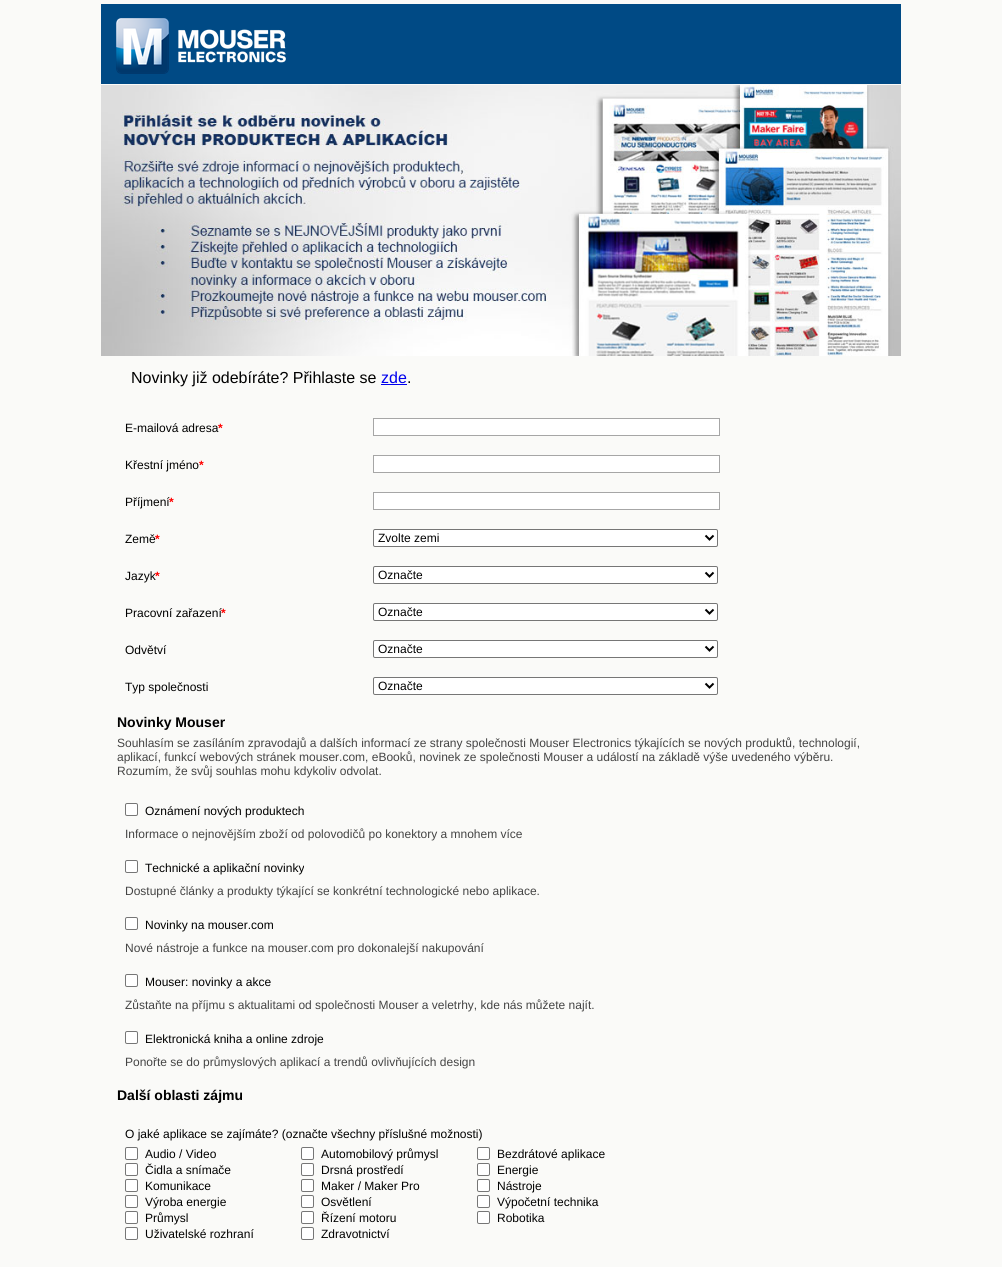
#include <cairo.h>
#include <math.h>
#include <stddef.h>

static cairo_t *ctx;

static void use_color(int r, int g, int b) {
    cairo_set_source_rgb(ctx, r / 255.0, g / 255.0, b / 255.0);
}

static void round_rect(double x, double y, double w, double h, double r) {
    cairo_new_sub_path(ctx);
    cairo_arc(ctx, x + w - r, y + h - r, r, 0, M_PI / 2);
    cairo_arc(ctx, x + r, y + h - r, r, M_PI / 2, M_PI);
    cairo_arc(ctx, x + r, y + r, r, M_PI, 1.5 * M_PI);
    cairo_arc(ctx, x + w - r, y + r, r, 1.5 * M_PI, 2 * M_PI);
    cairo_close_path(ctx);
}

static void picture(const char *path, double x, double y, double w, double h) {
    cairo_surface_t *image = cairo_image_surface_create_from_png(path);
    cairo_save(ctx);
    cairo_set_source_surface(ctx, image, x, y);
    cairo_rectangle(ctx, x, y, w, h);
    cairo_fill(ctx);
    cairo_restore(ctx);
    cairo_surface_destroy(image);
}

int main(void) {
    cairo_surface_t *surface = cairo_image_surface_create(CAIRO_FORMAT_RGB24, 1002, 1267);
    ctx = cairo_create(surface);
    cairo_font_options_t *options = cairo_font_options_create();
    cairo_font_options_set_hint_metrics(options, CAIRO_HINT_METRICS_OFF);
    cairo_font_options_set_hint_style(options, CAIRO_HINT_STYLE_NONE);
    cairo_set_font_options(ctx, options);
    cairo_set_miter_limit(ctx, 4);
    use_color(250, 250, 248);
    cairo_paint(ctx);
    use_color(0, 74, 133);
    cairo_rectangle(ctx, 101, 4, 800, 80);
    cairo_fill(ctx);
    picture("img1.png", 116, 18, 170, 56);
    picture("img2.png", 101, 85, 800, 271);
    cairo_select_font_face(ctx, "Liberation Sans", CAIRO_FONT_SLANT_NORMAL, CAIRO_FONT_WEIGHT_NORMAL);
    cairo_set_font_size(ctx, 16);
    use_color(0, 0, 0);
    cairo_move_to(ctx, 131, 383);
    cairo_show_text(ctx, "Novinky již odebíráte? Přihlaste se");
    use_color(0, 0, 238);
    cairo_move_to(ctx, 381, 383);
    cairo_show_text(ctx, "zde");
    use_color(0, 0, 0);
    cairo_move_to(ctx, 407, 383);
    cairo_show_text(ctx, ".");
    use_color(0, 0, 238);
    cairo_rectangle(ctx, 381, 384, 26, 1);
    cairo_fill(ctx);
    cairo_set_font_size(ctx, 12);
    use_color(0, 0, 0);
    cairo_move_to(ctx, 125, 432);
    cairo_show_text(ctx, "E-mailová adresa");
    cairo_select_font_face(ctx, "Liberation Sans", CAIRO_FONT_SLANT_NORMAL, CAIRO_FONT_WEIGHT_BOLD);
    use_color(255, 0, 0);
    cairo_move_to(ctx, 218, 432);
    cairo_show_text(ctx, "*");
    use_color(255, 255, 255);
    cairo_rectangle(ctx, 373.5, 418.5, 346, 17);
    cairo_fill_preserve(ctx);
    use_color(166, 166, 166);
    cairo_set_line_width(ctx, 1);
    cairo_stroke(ctx);
    cairo_select_font_face(ctx, "Liberation Sans", CAIRO_FONT_SLANT_NORMAL, CAIRO_FONT_WEIGHT_NORMAL);
    use_color(0, 0, 0);
    cairo_move_to(ctx, 125, 469);
    cairo_show_text(ctx, "Křestní jméno");
    cairo_select_font_face(ctx, "Liberation Sans", CAIRO_FONT_SLANT_NORMAL, CAIRO_FONT_WEIGHT_BOLD);
    use_color(255, 0, 0);
    cairo_move_to(ctx, 199, 469);
    cairo_show_text(ctx, "*");
    use_color(255, 255, 255);
    cairo_rectangle(ctx, 373.5, 455.5, 346, 17);
    cairo_fill_preserve(ctx);
    use_color(166, 166, 166);
    cairo_stroke(ctx);
    cairo_select_font_face(ctx, "Liberation Sans", CAIRO_FONT_SLANT_NORMAL, CAIRO_FONT_WEIGHT_NORMAL);
    use_color(0, 0, 0);
    cairo_move_to(ctx, 125, 506);
    cairo_show_text(ctx, "Příjmení");
    cairo_select_font_face(ctx, "Liberation Sans", CAIRO_FONT_SLANT_NORMAL, CAIRO_FONT_WEIGHT_BOLD);
    use_color(255, 0, 0);
    cairo_move_to(ctx, 169, 506);
    cairo_show_text(ctx, "*");
    use_color(255, 255, 255);
    cairo_rectangle(ctx, 373.5, 492.5, 346, 17);
    cairo_fill_preserve(ctx);
    use_color(166, 166, 166);
    cairo_stroke(ctx);
    cairo_select_font_face(ctx, "Liberation Sans", CAIRO_FONT_SLANT_NORMAL, CAIRO_FONT_WEIGHT_NORMAL);
    use_color(0, 0, 0);
    cairo_move_to(ctx, 125, 543);
    cairo_show_text(ctx, "Země");
    cairo_select_font_face(ctx, "Liberation Sans", CAIRO_FONT_SLANT_NORMAL, CAIRO_FONT_WEIGHT_BOLD);
    use_color(255, 0, 0);
    cairo_move_to(ctx, 155, 543);
    cairo_show_text(ctx, "*");
    use_color(255, 255, 255);
    round_rect(373.5, 529.5, 344, 17, 1.5);
    cairo_fill_preserve(ctx);
    use_color(118, 118, 118);
    cairo_stroke(ctx);
    cairo_new_path(ctx);
    cairo_move_to(ctx, 705.5, 535.5);
    cairo_line_to(ctx, 709.5, 539.5);
    cairo_line_to(ctx, 713.5, 535.5);
    use_color(0, 0, 0);
    cairo_set_line_width(ctx, 2);
    cairo_stroke(ctx);
    cairo_select_font_face(ctx, "Liberation Sans", CAIRO_FONT_SLANT_NORMAL, CAIRO_FONT_WEIGHT_NORMAL);
    cairo_move_to(ctx, 378, 542);
    cairo_show_text(ctx, "Zvolte zemi");
    cairo_move_to(ctx, 125, 580);
    cairo_show_text(ctx, "Jazyk");
    cairo_select_font_face(ctx, "Liberation Sans", CAIRO_FONT_SLANT_NORMAL, CAIRO_FONT_WEIGHT_BOLD);
    use_color(255, 0, 0);
    cairo_move_to(ctx, 155, 580);
    cairo_show_text(ctx, "*");
    use_color(255, 255, 255);
    round_rect(373.5, 566.5, 344, 17, 1.5);
    cairo_fill_preserve(ctx);
    use_color(118, 118, 118);
    cairo_set_line_width(ctx, 1);
    cairo_stroke(ctx);
    cairo_new_path(ctx);
    cairo_move_to(ctx, 705.5, 572.5);
    cairo_line_to(ctx, 709.5, 576.5);
    cairo_line_to(ctx, 713.5, 572.5);
    use_color(0, 0, 0);
    cairo_set_line_width(ctx, 2);
    cairo_stroke(ctx);
    cairo_select_font_face(ctx, "Liberation Sans", CAIRO_FONT_SLANT_NORMAL, CAIRO_FONT_WEIGHT_NORMAL);
    cairo_move_to(ctx, 378, 579);
    cairo_show_text(ctx, "Označte");
    cairo_move_to(ctx, 125, 617);
    cairo_show_text(ctx, "Pracovní zařazení");
    cairo_select_font_face(ctx, "Liberation Sans", CAIRO_FONT_SLANT_NORMAL, CAIRO_FONT_WEIGHT_BOLD);
    use_color(255, 0, 0);
    cairo_move_to(ctx, 221, 617);
    cairo_show_text(ctx, "*");
    use_color(255, 255, 255);
    round_rect(373.5, 603.5, 344, 17, 1.5);
    cairo_fill_preserve(ctx);
    use_color(118, 118, 118);
    cairo_set_line_width(ctx, 1);
    cairo_stroke(ctx);
    cairo_new_path(ctx);
    cairo_move_to(ctx, 705.5, 609.5);
    cairo_line_to(ctx, 709.5, 613.5);
    cairo_line_to(ctx, 713.5, 609.5);
    use_color(0, 0, 0);
    cairo_set_line_width(ctx, 2);
    cairo_stroke(ctx);
    cairo_select_font_face(ctx, "Liberation Sans", CAIRO_FONT_SLANT_NORMAL, CAIRO_FONT_WEIGHT_NORMAL);
    cairo_move_to(ctx, 378, 616);
    cairo_show_text(ctx, "Označte");
    cairo_move_to(ctx, 125, 654);
    cairo_show_text(ctx, "Odvětví");
    use_color(255, 255, 255);
    round_rect(373.5, 640.5, 344, 17, 1.5);
    cairo_fill_preserve(ctx);
    use_color(118, 118, 118);
    cairo_set_line_width(ctx, 1);
    cairo_stroke(ctx);
    cairo_new_path(ctx);
    cairo_move_to(ctx, 705.5, 646.5);
    cairo_line_to(ctx, 709.5, 650.5);
    cairo_line_to(ctx, 713.5, 646.5);
    use_color(0, 0, 0);
    cairo_set_line_width(ctx, 2);
    cairo_stroke(ctx);
    cairo_move_to(ctx, 378, 653);
    cairo_show_text(ctx, "Označte");
    cairo_move_to(ctx, 125, 691);
    cairo_show_text(ctx, "Typ společnosti");
    use_color(255, 255, 255);
    round_rect(373.5, 677.5, 344, 17, 1.5);
    cairo_fill_preserve(ctx);
    use_color(118, 118, 118);
    cairo_set_line_width(ctx, 1);
    cairo_stroke(ctx);
    cairo_new_path(ctx);
    cairo_move_to(ctx, 705.5, 683.5);
    cairo_line_to(ctx, 709.5, 687.5);
    cairo_line_to(ctx, 713.5, 683.5);
    use_color(0, 0, 0);
    cairo_set_line_width(ctx, 2);
    cairo_stroke(ctx);
    cairo_move_to(ctx, 378, 690);
    cairo_show_text(ctx, "Označte");
    cairo_select_font_face(ctx, "Liberation Sans", CAIRO_FONT_SLANT_NORMAL, CAIRO_FONT_WEIGHT_BOLD);
    cairo_set_font_size(ctx, 14);
    cairo_move_to(ctx, 117, 727);
    cairo_show_text(ctx, "Novinky Mouser");
    cairo_select_font_face(ctx, "Liberation Sans", CAIRO_FONT_SLANT_NORMAL, CAIRO_FONT_WEIGHT_NORMAL);
    cairo_set_font_size(ctx, 12);
    use_color(68, 68, 68);
    cairo_move_to(ctx, 117, 747);
    cairo_show_text(ctx, "Souhlasím se zasíláním zpravodajů a dalších informací ze strany společnosti Mouser Electronics týkajících se nových produktů, technologií,");
    cairo_move_to(ctx, 117, 761);
    cairo_show_text(ctx, "aplikací, funkcí webových stránek mouser.com, eBooků, novinek ze společnosti Mouser a událostí na základě výše uvedeného výběru.");
    cairo_move_to(ctx, 117, 775);
    cairo_show_text(ctx, "Rozumím, že svůj souhlas mohu kdykoliv odvolat.");
    use_color(255, 255, 255);
    round_rect(125.5, 803.5, 12, 12, 1.5);
    cairo_fill_preserve(ctx);
    use_color(118, 118, 118);
    cairo_set_line_width(ctx, 1);
    cairo_stroke(ctx);
    use_color(0, 0, 0);
    cairo_move_to(ctx, 145, 815);
    cairo_show_text(ctx, "Oznámení nových produktech");
    use_color(68, 68, 68);
    cairo_move_to(ctx, 125, 838);
    cairo_show_text(ctx, "Informace o nejnovějším zboží od polovodičů po konektory a mnohem více");
    use_color(255, 255, 255);
    round_rect(125.5, 860.5, 12, 12, 1.5);
    cairo_fill_preserve(ctx);
    use_color(118, 118, 118);
    cairo_stroke(ctx);
    use_color(0, 0, 0);
    cairo_move_to(ctx, 145, 872);
    cairo_show_text(ctx, "Technické a aplikační novinky");
    use_color(68, 68, 68);
    cairo_move_to(ctx, 125, 895);
    cairo_show_text(ctx, "Dostupné články a produkty týkající se konkrétní technologické nebo aplikace.");
    use_color(255, 255, 255);
    round_rect(125.5, 917.5, 12, 12, 1.5);
    cairo_fill_preserve(ctx);
    use_color(118, 118, 118);
    cairo_stroke(ctx);
    use_color(0, 0, 0);
    cairo_move_to(ctx, 145, 929);
    cairo_show_text(ctx, "Novinky na mouser.com");
    use_color(68, 68, 68);
    cairo_move_to(ctx, 125, 952);
    cairo_show_text(ctx, "Nové nástroje a funkce na mouser.com pro dokonalejší nakupování");
    use_color(255, 255, 255);
    round_rect(125.5, 974.5, 12, 12, 1.5);
    cairo_fill_preserve(ctx);
    use_color(118, 118, 118);
    cairo_stroke(ctx);
    use_color(0, 0, 0);
    cairo_move_to(ctx, 145, 986);
    cairo_show_text(ctx, "Mouser: novinky a akce");
    use_color(68, 68, 68);
    cairo_move_to(ctx, 125, 1009);
    cairo_show_text(ctx, "Zůstaňte na příjmu s aktualitami od společnosti Mouser a veletrhy, kde nás můžete najít.");
    use_color(255, 255, 255);
    round_rect(125.5, 1031.5, 12, 12, 1.5);
    cairo_fill_preserve(ctx);
    use_color(118, 118, 118);
    cairo_stroke(ctx);
    use_color(0, 0, 0);
    cairo_move_to(ctx, 145, 1043);
    cairo_show_text(ctx, "Elektronická kniha a online zdroje");
    use_color(68, 68, 68);
    cairo_move_to(ctx, 125, 1066);
    cairo_show_text(ctx, "Ponořte se do průmyslových aplikací a trendů ovlivňujících design");
    cairo_select_font_face(ctx, "Liberation Sans", CAIRO_FONT_SLANT_NORMAL, CAIRO_FONT_WEIGHT_BOLD);
    cairo_set_font_size(ctx, 14);
    use_color(0, 0, 0);
    cairo_move_to(ctx, 117, 1100);
    cairo_show_text(ctx, "Další oblasti zájmu");
    cairo_select_font_face(ctx, "Liberation Sans", CAIRO_FONT_SLANT_NORMAL, CAIRO_FONT_WEIGHT_NORMAL);
    cairo_set_font_size(ctx, 12);
    cairo_move_to(ctx, 125, 1138);
    cairo_show_text(ctx, "O jaké aplikace se zajímáte? (označte všechny příslušné možnosti)");
    use_color(255, 255, 255);
    round_rect(125.5, 1147.5, 12, 12, 1.5);
    cairo_fill_preserve(ctx);
    use_color(118, 118, 118);
    cairo_stroke(ctx);
    use_color(0, 0, 0);
    cairo_move_to(ctx, 145, 1158);
    cairo_show_text(ctx, "Audio / Video");
    use_color(255, 255, 255);
    round_rect(301.5, 1147.5, 12, 12, 1.5);
    cairo_fill_preserve(ctx);
    use_color(118, 118, 118);
    cairo_stroke(ctx);
    use_color(0, 0, 0);
    cairo_move_to(ctx, 321, 1158);
    cairo_show_text(ctx, "Automobilový průmysl");
    use_color(255, 255, 255);
    round_rect(477.5, 1147.5, 12, 12, 1.5);
    cairo_fill_preserve(ctx);
    use_color(118, 118, 118);
    cairo_stroke(ctx);
    use_color(0, 0, 0);
    cairo_move_to(ctx, 497, 1158);
    cairo_show_text(ctx, "Bezdrátové aplikace");
    use_color(255, 255, 255);
    round_rect(125.5, 1163.5, 12, 12, 1.5);
    cairo_fill_preserve(ctx);
    use_color(118, 118, 118);
    cairo_stroke(ctx);
    use_color(0, 0, 0);
    cairo_move_to(ctx, 145, 1174);
    cairo_show_text(ctx, "Čidla a snímače");
    use_color(255, 255, 255);
    round_rect(301.5, 1163.5, 12, 12, 1.5);
    cairo_fill_preserve(ctx);
    use_color(118, 118, 118);
    cairo_stroke(ctx);
    use_color(0, 0, 0);
    cairo_move_to(ctx, 321, 1174);
    cairo_show_text(ctx, "Drsná prostředí");
    use_color(255, 255, 255);
    round_rect(477.5, 1163.5, 12, 12, 1.5);
    cairo_fill_preserve(ctx);
    use_color(118, 118, 118);
    cairo_stroke(ctx);
    use_color(0, 0, 0);
    cairo_move_to(ctx, 497, 1174);
    cairo_show_text(ctx, "Energie");
    use_color(255, 255, 255);
    round_rect(125.5, 1179.5, 12, 12, 1.5);
    cairo_fill_preserve(ctx);
    use_color(118, 118, 118);
    cairo_stroke(ctx);
    use_color(0, 0, 0);
    cairo_move_to(ctx, 145, 1190);
    cairo_show_text(ctx, "Komunikace");
    use_color(255, 255, 255);
    round_rect(301.5, 1179.5, 12, 12, 1.5);
    cairo_fill_preserve(ctx);
    use_color(118, 118, 118);
    cairo_stroke(ctx);
    use_color(0, 0, 0);
    cairo_move_to(ctx, 321, 1190);
    cairo_show_text(ctx, "Maker / Maker Pro");
    use_color(255, 255, 255);
    round_rect(477.5, 1179.5, 12, 12, 1.5);
    cairo_fill_preserve(ctx);
    use_color(118, 118, 118);
    cairo_stroke(ctx);
    use_color(0, 0, 0);
    cairo_move_to(ctx, 497, 1190);
    cairo_show_text(ctx, "Nástroje");
    use_color(255, 255, 255);
    round_rect(125.5, 1195.5, 12, 12, 1.5);
    cairo_fill_preserve(ctx);
    use_color(118, 118, 118);
    cairo_stroke(ctx);
    use_color(0, 0, 0);
    cairo_move_to(ctx, 145, 1206);
    cairo_show_text(ctx, "Výroba energie");
    use_color(255, 255, 255);
    round_rect(301.5, 1195.5, 12, 12, 1.5);
    cairo_fill_preserve(ctx);
    use_color(118, 118, 118);
    cairo_stroke(ctx);
    use_color(0, 0, 0);
    cairo_move_to(ctx, 321, 1206);
    cairo_show_text(ctx, "Osvětlení");
    use_color(255, 255, 255);
    round_rect(477.5, 1195.5, 12, 12, 1.5);
    cairo_fill_preserve(ctx);
    use_color(118, 118, 118);
    cairo_stroke(ctx);
    use_color(0, 0, 0);
    cairo_move_to(ctx, 497, 1206);
    cairo_show_text(ctx, "Výpočetní technika");
    use_color(255, 255, 255);
    round_rect(125.5, 1211.5, 12, 12, 1.5);
    cairo_fill_preserve(ctx);
    use_color(118, 118, 118);
    cairo_stroke(ctx);
    use_color(0, 0, 0);
    cairo_move_to(ctx, 145, 1222);
    cairo_show_text(ctx, "Průmysl");
    use_color(255, 255, 255);
    round_rect(301.5, 1211.5, 12, 12, 1.5);
    cairo_fill_preserve(ctx);
    use_color(118, 118, 118);
    cairo_stroke(ctx);
    use_color(0, 0, 0);
    cairo_move_to(ctx, 321, 1222);
    cairo_show_text(ctx, "Řízení motoru");
    use_color(255, 255, 255);
    round_rect(477.5, 1211.5, 12, 12, 1.5);
    cairo_fill_preserve(ctx);
    use_color(118, 118, 118);
    cairo_stroke(ctx);
    use_color(0, 0, 0);
    cairo_move_to(ctx, 497, 1222);
    cairo_show_text(ctx, "Robotika");
    use_color(255, 255, 255);
    round_rect(125.5, 1227.5, 12, 12, 1.5);
    cairo_fill_preserve(ctx);
    use_color(118, 118, 118);
    cairo_stroke(ctx);
    use_color(0, 0, 0);
    cairo_move_to(ctx, 145, 1238);
    cairo_show_text(ctx, "Uživatelské rozhraní");
    use_color(255, 255, 255);
    round_rect(301.5, 1227.5, 12, 12, 1.5);
    cairo_fill_preserve(ctx);
    use_color(118, 118, 118);
    cairo_stroke(ctx);
    use_color(0, 0, 0);
    cairo_move_to(ctx, 321, 1238);
    cairo_show_text(ctx, "Zdravotnictví");
    cairo_surface_write_to_png(surface, "result.png");
    cairo_font_options_destroy(options);
    cairo_destroy(ctx);
    cairo_surface_destroy(surface);
    return 0;
}
